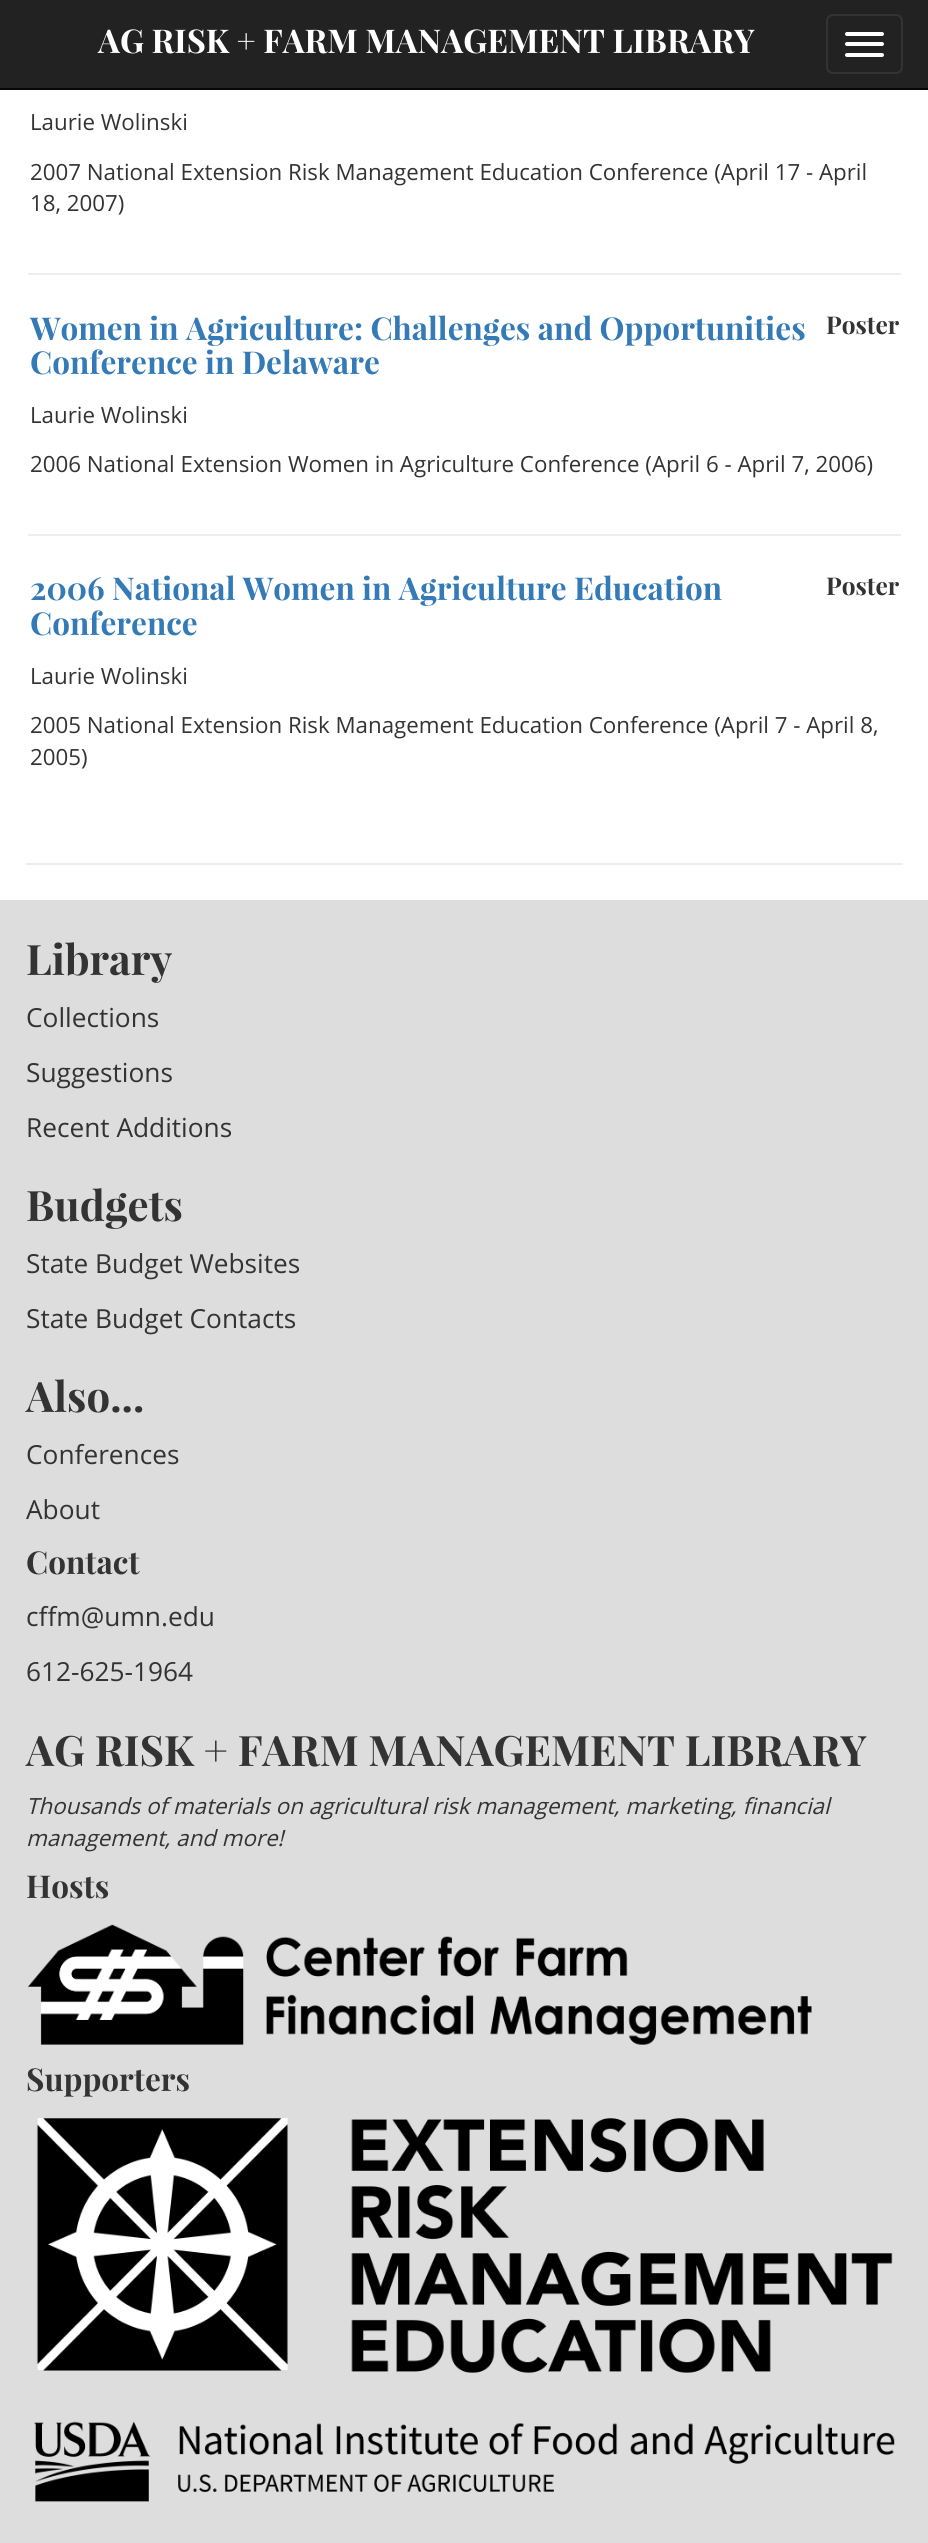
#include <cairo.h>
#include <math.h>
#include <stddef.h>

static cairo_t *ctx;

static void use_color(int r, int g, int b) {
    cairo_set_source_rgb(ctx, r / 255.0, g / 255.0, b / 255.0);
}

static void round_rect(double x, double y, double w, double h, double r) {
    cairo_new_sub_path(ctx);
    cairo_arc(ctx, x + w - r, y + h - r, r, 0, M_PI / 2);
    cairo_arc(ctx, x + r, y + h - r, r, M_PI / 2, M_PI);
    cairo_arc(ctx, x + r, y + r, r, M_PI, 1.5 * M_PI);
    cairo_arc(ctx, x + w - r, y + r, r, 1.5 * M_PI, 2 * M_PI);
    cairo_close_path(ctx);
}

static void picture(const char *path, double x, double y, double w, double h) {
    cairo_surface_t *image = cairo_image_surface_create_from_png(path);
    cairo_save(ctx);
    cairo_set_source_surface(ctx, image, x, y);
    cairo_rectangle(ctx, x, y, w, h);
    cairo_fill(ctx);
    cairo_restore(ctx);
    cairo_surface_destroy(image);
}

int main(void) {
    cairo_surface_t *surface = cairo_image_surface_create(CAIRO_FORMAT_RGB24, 928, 2543);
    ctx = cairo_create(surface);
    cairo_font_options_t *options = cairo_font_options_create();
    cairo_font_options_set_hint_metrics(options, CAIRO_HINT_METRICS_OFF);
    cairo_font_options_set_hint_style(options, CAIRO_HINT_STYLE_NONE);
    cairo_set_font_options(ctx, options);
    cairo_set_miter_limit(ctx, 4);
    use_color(255, 255, 255);
    cairo_paint(ctx);
    use_color(34, 34, 34);
    cairo_rectangle(ctx, 0, 0, 928, 88);
    cairo_fill(ctx);
    use_color(8, 8, 8);
    cairo_rectangle(ctx, 0, 88, 928, 2);
    cairo_fill(ctx);
    cairo_select_font_face(ctx, "Playfair Display", CAIRO_FONT_SLANT_NORMAL, CAIRO_FONT_WEIGHT_BOLD);
    cairo_set_font_size(ctx, 32.8);
    use_color(255, 255, 255);
    cairo_move_to(ctx, 98, 53);
    cairo_show_text(ctx, "AG RISK + FARM MANAGEMENT LIBRARY");
    round_rect(827, 15, 75, 58, 6);
    use_color(51, 51, 51);
    cairo_stroke(ctx);
    use_color(255, 255, 255);
    round_rect(845, 32, 39, 4, 2);
    cairo_fill(ctx);
    round_rect(845, 42, 39, 4, 2);
    cairo_fill(ctx);
    round_rect(845, 53, 39, 4, 2);
    cairo_fill(ctx);
    cairo_select_font_face(ctx, "Open Sans", CAIRO_FONT_SLANT_NORMAL, CAIRO_FONT_WEIGHT_NORMAL);
    cairo_set_font_size(ctx, 22.3);
    use_color(51, 51, 51);
    cairo_move_to(ctx, 30, 130);
    cairo_show_text(ctx, "Laurie Wolinski");
    cairo_move_to(ctx, 30, 180);
    cairo_show_text(ctx, "2007 National Extension Risk Management Education Conference (April 17 - April");
    cairo_move_to(ctx, 30, 211);
    cairo_show_text(ctx, "18, 2007)");
    use_color(238, 238, 238);
    cairo_rectangle(ctx, 28, 273, 873, 2);
    cairo_fill(ctx);
    cairo_select_font_face(ctx, "Playfair Display", CAIRO_FONT_SLANT_NORMAL, CAIRO_FONT_WEIGHT_BOLD);
    cairo_set_font_size(ctx, 31.5);
    use_color(51, 122, 183);
    cairo_move_to(ctx, 30, 340);
    cairo_show_text(ctx, "Women in Agriculture: Challenges and Opportunities");
    cairo_move_to(ctx, 30, 374);
    cairo_show_text(ctx, "Conference in Delaware");
    cairo_set_font_size(ctx, 24.5);
    use_color(51, 51, 51);
    cairo_move_to(ctx, 826, 334);
    cairo_show_text(ctx, "Poster");
    cairo_select_font_face(ctx, "Open Sans", CAIRO_FONT_SLANT_NORMAL, CAIRO_FONT_WEIGHT_NORMAL);
    cairo_set_font_size(ctx, 22.3);
    cairo_move_to(ctx, 30, 423);
    cairo_show_text(ctx, "Laurie Wolinski");
    cairo_move_to(ctx, 30, 472);
    cairo_show_text(ctx, "2006 National Extension Women in Agriculture Conference (April 6 - April 7, 2006)");
    use_color(238, 238, 238);
    cairo_rectangle(ctx, 28, 534, 873, 2);
    cairo_fill(ctx);
    cairo_select_font_face(ctx, "Playfair Display", CAIRO_FONT_SLANT_NORMAL, CAIRO_FONT_WEIGHT_BOLD);
    cairo_set_font_size(ctx, 31.5);
    use_color(51, 122, 183);
    cairo_move_to(ctx, 30, 600);
    cairo_show_text(ctx, "2006 National Women in Agriculture Education");
    cairo_move_to(ctx, 30, 635);
    cairo_show_text(ctx, "Conference");
    cairo_set_font_size(ctx, 24.5);
    use_color(51, 51, 51);
    cairo_move_to(ctx, 826, 595);
    cairo_show_text(ctx, "Poster");
    cairo_select_font_face(ctx, "Open Sans", CAIRO_FONT_SLANT_NORMAL, CAIRO_FONT_WEIGHT_NORMAL);
    cairo_set_font_size(ctx, 22.3);
    cairo_move_to(ctx, 30, 684);
    cairo_show_text(ctx, "Laurie Wolinski");
    cairo_move_to(ctx, 30, 733);
    cairo_show_text(ctx, "2005 National Extension Risk Management Education Conference (April 7 - April 8,");
    cairo_move_to(ctx, 30, 765);
    cairo_show_text(ctx, "2005)");
    use_color(238, 238, 238);
    cairo_rectangle(ctx, 26, 863, 877, 2);
    cairo_fill(ctx);
    use_color(221, 221, 221);
    cairo_rectangle(ctx, 0, 900, 928, 1643);
    cairo_fill(ctx);
    cairo_select_font_face(ctx, "Playfair Display", CAIRO_FONT_SLANT_NORMAL, CAIRO_FONT_WEIGHT_BOLD);
    cairo_set_font_size(ctx, 42);
    use_color(51, 51, 51);
    cairo_move_to(ctx, 26, 975);
    cairo_show_text(ctx, "Library");
    cairo_select_font_face(ctx, "Open Sans", CAIRO_FONT_SLANT_NORMAL, CAIRO_FONT_WEIGHT_NORMAL);
    cairo_set_font_size(ctx, 26.25);
    cairo_move_to(ctx, 26, 1027);
    cairo_show_text(ctx, "Collections");
    cairo_move_to(ctx, 26, 1082);
    cairo_show_text(ctx, "Suggestions");
    cairo_move_to(ctx, 26, 1137);
    cairo_show_text(ctx, "Recent Additions");
    cairo_select_font_face(ctx, "Playfair Display", CAIRO_FONT_SLANT_NORMAL, CAIRO_FONT_WEIGHT_BOLD);
    cairo_set_font_size(ctx, 42);
    cairo_move_to(ctx, 26, 1221);
    cairo_show_text(ctx, "Budgets");
    cairo_select_font_face(ctx, "Open Sans", CAIRO_FONT_SLANT_NORMAL, CAIRO_FONT_WEIGHT_NORMAL);
    cairo_set_font_size(ctx, 26.25);
    cairo_move_to(ctx, 26, 1273);
    cairo_show_text(ctx, "State Budget Websites");
    cairo_move_to(ctx, 26, 1328);
    cairo_show_text(ctx, "State Budget Contacts");
    cairo_select_font_face(ctx, "Playfair Display", CAIRO_FONT_SLANT_NORMAL, CAIRO_FONT_WEIGHT_BOLD);
    cairo_set_font_size(ctx, 42);
    cairo_move_to(ctx, 26, 1412);
    cairo_show_text(ctx, "Also...");
    cairo_select_font_face(ctx, "Open Sans", CAIRO_FONT_SLANT_NORMAL, CAIRO_FONT_WEIGHT_NORMAL);
    cairo_set_font_size(ctx, 26.25);
    cairo_move_to(ctx, 26, 1464);
    cairo_show_text(ctx, "Conferences");
    cairo_move_to(ctx, 26, 1519);
    cairo_show_text(ctx, "About");
    cairo_select_font_face(ctx, "Playfair Display", CAIRO_FONT_SLANT_NORMAL, CAIRO_FONT_WEIGHT_BOLD);
    cairo_set_font_size(ctx, 31.5);
    cairo_move_to(ctx, 26, 1574);
    cairo_show_text(ctx, "Contact");
    cairo_select_font_face(ctx, "Open Sans", CAIRO_FONT_SLANT_NORMAL, CAIRO_FONT_WEIGHT_NORMAL);
    cairo_set_font_size(ctx, 26.25);
    cairo_move_to(ctx, 26, 1626);
    cairo_show_text(ctx, "cffm@umn.edu");
    cairo_move_to(ctx, 26, 1681);
    cairo_show_text(ctx, "612-625-1964");
    cairo_select_font_face(ctx, "Playfair Display", CAIRO_FONT_SLANT_NORMAL, CAIRO_FONT_WEIGHT_BOLD);
    cairo_set_font_size(ctx, 42);
    cairo_move_to(ctx, 26, 1766);
    cairo_show_text(ctx, "AG RISK + FARM MANAGEMENT LIBRARY");
    cairo_select_font_face(ctx, "Open Sans", CAIRO_FONT_SLANT_ITALIC, CAIRO_FONT_WEIGHT_NORMAL);
    cairo_set_font_size(ctx, 22.3);
    cairo_move_to(ctx, 26, 1814);
    cairo_show_text(ctx, "Thousands of materials on agricultural risk management, marketing, financial");
    cairo_move_to(ctx, 26, 1846);
    cairo_show_text(ctx, "management, and more!");
    cairo_select_font_face(ctx, "Playfair Display", CAIRO_FONT_SLANT_NORMAL, CAIRO_FONT_WEIGHT_BOLD);
    cairo_set_font_size(ctx, 31.5);
    cairo_move_to(ctx, 26, 1898);
    cairo_show_text(ctx, "Hosts");
    picture("img1.png", 28, 1924, 784, 121);
    cairo_move_to(ctx, 26, 2091);
    cairo_show_text(ctx, "Supporters");
    picture("img2.png", 36, 2118, 857, 255);
    picture("img3.png", 34, 2421, 861, 81);
    cairo_surface_write_to_png(surface, "result.png");
    cairo_font_options_destroy(options);
    cairo_destroy(ctx);
    cairo_surface_destroy(surface);
    return 0;
}
